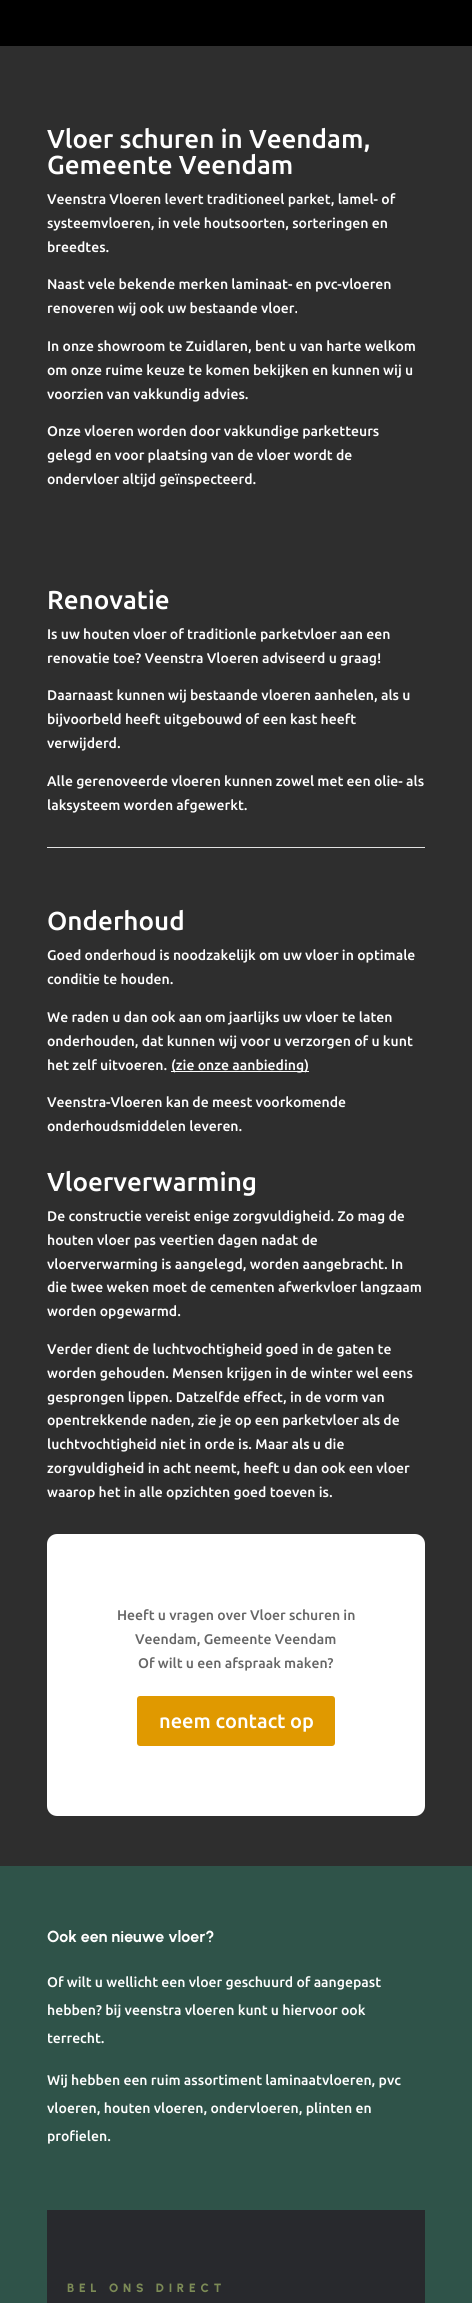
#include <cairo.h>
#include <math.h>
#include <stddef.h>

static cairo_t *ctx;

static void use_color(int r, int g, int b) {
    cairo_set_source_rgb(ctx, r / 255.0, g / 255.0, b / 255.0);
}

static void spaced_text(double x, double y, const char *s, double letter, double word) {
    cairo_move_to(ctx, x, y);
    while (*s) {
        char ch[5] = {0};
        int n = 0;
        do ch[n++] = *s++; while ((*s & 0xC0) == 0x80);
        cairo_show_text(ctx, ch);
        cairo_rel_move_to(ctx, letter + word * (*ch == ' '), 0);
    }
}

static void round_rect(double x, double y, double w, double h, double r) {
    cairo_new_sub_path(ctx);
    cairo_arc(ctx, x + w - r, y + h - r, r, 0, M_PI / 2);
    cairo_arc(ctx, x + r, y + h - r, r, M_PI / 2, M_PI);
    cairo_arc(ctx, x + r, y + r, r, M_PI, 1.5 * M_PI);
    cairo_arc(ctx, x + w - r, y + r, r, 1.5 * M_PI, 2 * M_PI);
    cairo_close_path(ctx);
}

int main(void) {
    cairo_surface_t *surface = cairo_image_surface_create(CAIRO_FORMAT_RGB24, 472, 2303);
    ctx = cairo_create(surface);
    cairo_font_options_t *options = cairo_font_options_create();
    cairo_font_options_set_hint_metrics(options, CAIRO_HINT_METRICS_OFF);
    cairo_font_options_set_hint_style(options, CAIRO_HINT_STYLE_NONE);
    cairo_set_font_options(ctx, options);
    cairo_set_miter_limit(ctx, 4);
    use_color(0, 0, 0);
    cairo_paint(ctx);
    use_color(46, 46, 46);
    cairo_rectangle(ctx, 0, 46, 472, 1820);
    cairo_fill(ctx);
    cairo_select_font_face(ctx, "Ubuntu Medium", CAIRO_FONT_SLANT_NORMAL, CAIRO_FONT_WEIGHT_NORMAL);
    cairo_set_font_size(ctx, 26);
    use_color(255, 255, 255);
    cairo_move_to(ctx, 47, 148);
    cairo_show_text(ctx, "Vloer schuren in Veendam,");
    cairo_move_to(ctx, 47, 174);
    cairo_show_text(ctx, "Gemeente Veendam");
    cairo_set_font_size(ctx, 14);
    cairo_move_to(ctx, 47, 204);
    cairo_show_text(ctx, "Veenstra Vloeren levert traditioneel parket, lamel- of");
    cairo_move_to(ctx, 47, 228);
    cairo_show_text(ctx, "systeemvloeren, in vele houtsoorten, sorteringen en");
    cairo_move_to(ctx, 47, 252);
    cairo_show_text(ctx, "breedtes.");
    cairo_move_to(ctx, 47, 289);
    cairo_show_text(ctx, "Naast vele bekende merken laminaat- en pvc-vloeren");
    cairo_move_to(ctx, 47, 313);
    cairo_show_text(ctx, "renoveren wij ook uw bestaande vloer.");
    cairo_move_to(ctx, 47, 351);
    cairo_show_text(ctx, "In onze showroom te Zuidlaren, bent u van harte welkom");
    cairo_move_to(ctx, 47, 375);
    cairo_show_text(ctx, "om onze ruime keuze te komen bekijken en kunnen wij u");
    cairo_move_to(ctx, 47, 399);
    cairo_show_text(ctx, "voorzien van vakkundig advies.");
    cairo_move_to(ctx, 47, 436);
    cairo_show_text(ctx, "Onze vloeren worden door vakkundige parketteurs");
    cairo_move_to(ctx, 47, 460);
    cairo_show_text(ctx, "gelegd en voor plaatsing van de vloer wordt de");
    cairo_move_to(ctx, 47, 484);
    cairo_show_text(ctx, "ondervloer altijd geïnspecteerd.");
    cairo_set_font_size(ctx, 26);
    cairo_move_to(ctx, 47, 609);
    cairo_show_text(ctx, "Renovatie");
    cairo_set_font_size(ctx, 14);
    cairo_move_to(ctx, 47, 639);
    cairo_show_text(ctx, "Is uw houten vloer of traditionle parketvloer aan een");
    cairo_move_to(ctx, 47, 663);
    cairo_show_text(ctx, "renovatie toe? Veenstra Vloeren adviseerd u graag!");
    cairo_move_to(ctx, 47, 700);
    cairo_show_text(ctx, "Daarnaast kunnen wij bestaande vloeren aanhelen, als u");
    cairo_move_to(ctx, 47, 724);
    cairo_show_text(ctx, "bijvoorbeld heeft uitgebouwd of een kast heeft");
    cairo_move_to(ctx, 47, 748);
    cairo_show_text(ctx, "verwijderd.");
    cairo_move_to(ctx, 47, 786);
    cairo_show_text(ctx, "Alle gerenoveerde vloeren kunnen zowel met een olie- als");
    cairo_move_to(ctx, 47, 810);
    cairo_show_text(ctx, "laksysteem worden afgewerkt.");
    use_color(226, 226, 226);
    cairo_rectangle(ctx, 47, 847, 378, 1);
    cairo_fill(ctx);
    cairo_set_font_size(ctx, 26);
    use_color(255, 255, 255);
    cairo_move_to(ctx, 47, 930);
    cairo_show_text(ctx, "Onderhoud");
    cairo_set_font_size(ctx, 14);
    cairo_move_to(ctx, 47, 960);
    cairo_show_text(ctx, "Goed onderhoud is noodzakelijk om uw vloer in optimale");
    cairo_move_to(ctx, 47, 984);
    cairo_show_text(ctx, "conditie te houden.");
    cairo_move_to(ctx, 47, 1022);
    cairo_show_text(ctx, "We raden u dan ook aan om jaarlijks uw vloer te laten");
    cairo_move_to(ctx, 47, 1046);
    cairo_show_text(ctx, "onderhouden, dat kunnen wij voor u verzorgen of u kunt");
    cairo_move_to(ctx, 47, 1070);
    cairo_show_text(ctx, "het zelf uitvoeren.");
    cairo_rectangle(ctx, 171, 1071, 138, 1);
    cairo_fill(ctx);
    cairo_move_to(ctx, 171, 1070);
    cairo_show_text(ctx, "(zie onze aanbieding)");
    cairo_move_to(ctx, 47, 1107);
    cairo_show_text(ctx, "Veenstra-Vloeren kan de meest voorkomende");
    cairo_move_to(ctx, 47, 1131);
    cairo_show_text(ctx, "onderhoudsmiddelen leveren.");
    cairo_set_font_size(ctx, 26);
    cairo_move_to(ctx, 47, 1191);
    cairo_show_text(ctx, "Vloerverwarming");
    cairo_set_font_size(ctx, 14);
    cairo_move_to(ctx, 47, 1221);
    cairo_show_text(ctx, "De constructie vereist enige zorgvuldigheid. Zo mag de");
    cairo_move_to(ctx, 47, 1245);
    cairo_show_text(ctx, "houten vloer pas veertien dagen nadat de");
    cairo_move_to(ctx, 47, 1269);
    cairo_show_text(ctx, "vloerverwarming is aangelegd, worden aangebracht. In");
    cairo_move_to(ctx, 47, 1292);
    cairo_show_text(ctx, "die twee weken moet de cementen afwerkvloer langzaam");
    cairo_move_to(ctx, 47, 1316);
    cairo_show_text(ctx, "worden opgewarmd.");
    cairo_move_to(ctx, 47, 1354);
    cairo_show_text(ctx, "Verder dient de luchtvochtigheid goed in de gaten te");
    cairo_move_to(ctx, 47, 1378);
    cairo_show_text(ctx, "worden gehouden. Mensen krijgen in de winter wel eens");
    cairo_move_to(ctx, 47, 1402);
    cairo_show_text(ctx, "gesprongen lippen. Datzelfde effect, in de vorm van");
    cairo_move_to(ctx, 47, 1425);
    cairo_show_text(ctx, "opentrekkende naden, zie je op een parketvloer als de");
    cairo_move_to(ctx, 47, 1449);
    cairo_show_text(ctx, "luchtvochtigheid niet in orde is. Maar als u die");
    cairo_move_to(ctx, 47, 1473);
    cairo_show_text(ctx, "zorgvuldigheid in acht neemt, heeft u dan ook een vloer");
    cairo_move_to(ctx, 47, 1497);
    cairo_show_text(ctx, "waarop het in alle opzichten goed toeven is.");
    round_rect(47, 1534, 378, 282, 10);
    cairo_fill(ctx);
    use_color(102, 102, 102);
    cairo_move_to(ctx, 117, 1620);
    cairo_show_text(ctx, "Heeft u vragen over Vloer schuren in");
    cairo_move_to(ctx, 135, 1644);
    cairo_show_text(ctx, "Veendam, Gemeente Veendam");
    cairo_move_to(ctx, 138, 1668);
    cairo_show_text(ctx, "Of wilt u een afspraak maken?");
    use_color(224, 153, 0);
    round_rect(138, 1697, 196, 48, 2);
    cairo_fill_preserve(ctx);
    cairo_stroke(ctx);
    cairo_set_font_size(ctx, 20);
    use_color(255, 255, 255);
    cairo_move_to(ctx, 159, 1728);
    cairo_show_text(ctx, "neem contact op");
    use_color(47, 83, 73);
    cairo_rectangle(ctx, 0, 1866, 472, 437);
    cairo_fill(ctx);
    use_color(40, 41, 45);
    cairo_rectangle(ctx, 47, 2210, 378, 93);
    cairo_fill(ctx);
    cairo_select_font_face(ctx, "Urbanist", CAIRO_FONT_SLANT_NORMAL, CAIRO_FONT_WEIGHT_BOLD);
    cairo_set_font_size(ctx, 16);
    use_color(255, 255, 255);
    cairo_move_to(ctx, 47, 1942);
    cairo_show_text(ctx, "Ook een nieuwe vloer?");
    cairo_select_font_face(ctx, "Ubuntu Medium", CAIRO_FONT_SLANT_NORMAL, CAIRO_FONT_WEIGHT_NORMAL);
    cairo_set_font_size(ctx, 14);
    cairo_move_to(ctx, 47, 1987);
    cairo_show_text(ctx, "Of wilt u wellicht een vloer geschuurd of aangepast");
    cairo_move_to(ctx, 47, 2015);
    cairo_show_text(ctx, "hebben? bij veenstra vloeren kunt u hiervoor ook");
    cairo_move_to(ctx, 47, 2043);
    cairo_show_text(ctx, "terrecht.");
    cairo_move_to(ctx, 47, 2085);
    cairo_show_text(ctx, "Wij hebben een ruim assortiment laminaatvloeren, pvc");
    cairo_move_to(ctx, 47, 2113);
    cairo_show_text(ctx, "vloeren, houten vloeren, ondervloeren, plinten en");
    cairo_move_to(ctx, 47, 2141);
    cairo_show_text(ctx, "profielen.");
    cairo_select_font_face(ctx, "Urbanist ExtraBold", CAIRO_FONT_SLANT_NORMAL, CAIRO_FONT_WEIGHT_NORMAL);
    cairo_set_font_size(ctx, 12);
    use_color(124, 139, 86);
    spaced_text(67, 2292, "BEL ONS DIRECT", 4.75, 0);
    cairo_surface_write_to_png(surface, "result.png");
    cairo_font_options_destroy(options);
    cairo_destroy(ctx);
    cairo_surface_destroy(surface);
    return 0;
}
